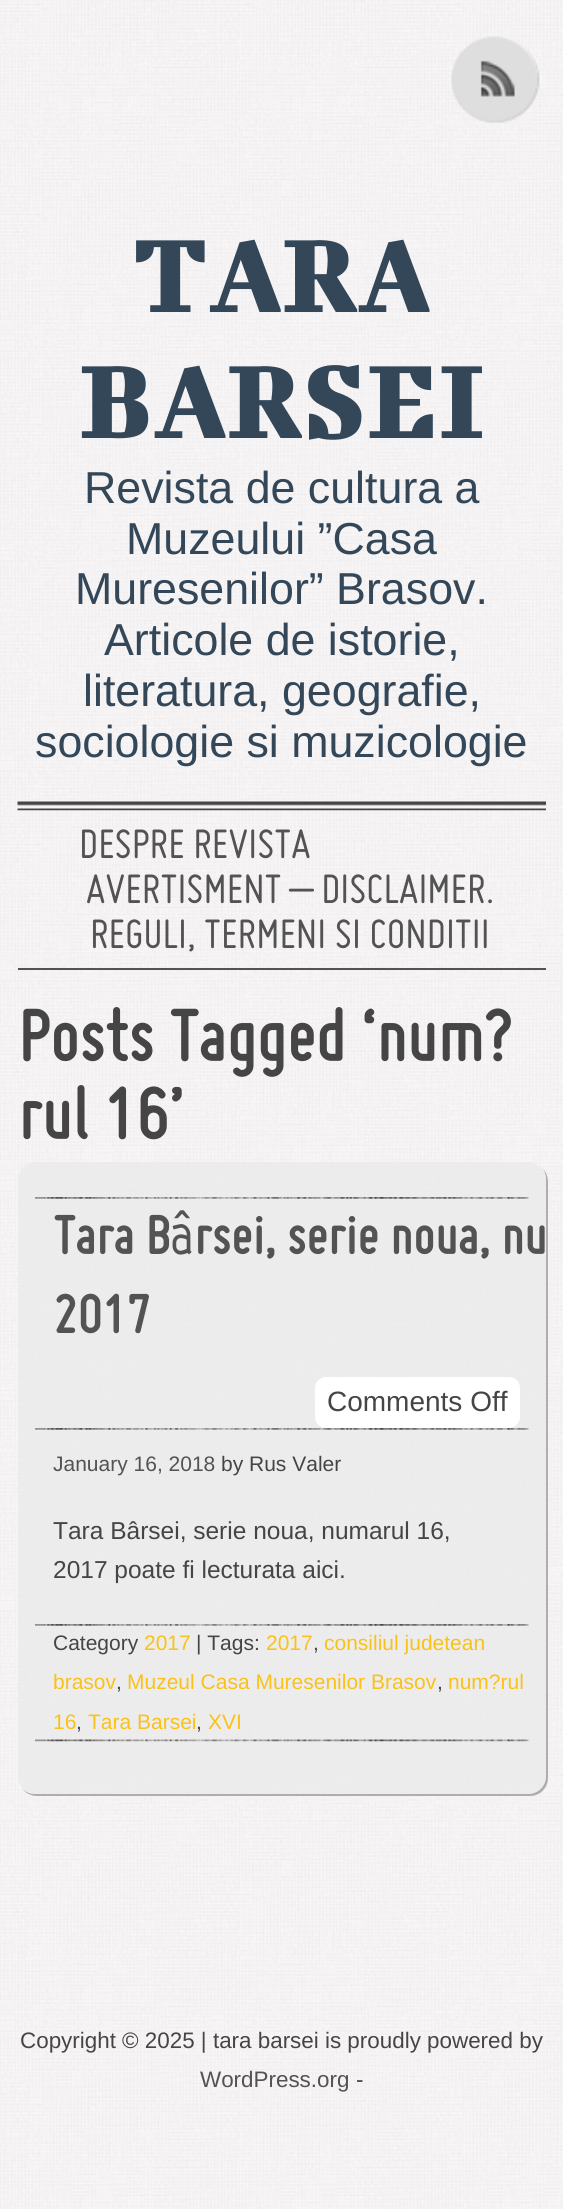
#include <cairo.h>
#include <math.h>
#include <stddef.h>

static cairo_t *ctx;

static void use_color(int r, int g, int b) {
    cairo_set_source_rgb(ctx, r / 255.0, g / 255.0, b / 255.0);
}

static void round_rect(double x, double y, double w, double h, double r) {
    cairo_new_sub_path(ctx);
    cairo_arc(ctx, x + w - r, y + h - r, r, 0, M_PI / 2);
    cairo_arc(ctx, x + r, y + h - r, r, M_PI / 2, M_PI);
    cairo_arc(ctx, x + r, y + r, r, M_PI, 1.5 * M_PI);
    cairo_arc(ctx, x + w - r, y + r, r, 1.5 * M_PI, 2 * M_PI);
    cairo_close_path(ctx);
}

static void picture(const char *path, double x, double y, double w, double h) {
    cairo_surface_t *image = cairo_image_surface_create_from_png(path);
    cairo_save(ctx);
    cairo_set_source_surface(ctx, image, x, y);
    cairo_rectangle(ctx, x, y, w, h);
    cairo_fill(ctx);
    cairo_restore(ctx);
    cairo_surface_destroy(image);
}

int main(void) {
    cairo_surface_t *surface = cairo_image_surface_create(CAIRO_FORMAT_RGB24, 563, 2209);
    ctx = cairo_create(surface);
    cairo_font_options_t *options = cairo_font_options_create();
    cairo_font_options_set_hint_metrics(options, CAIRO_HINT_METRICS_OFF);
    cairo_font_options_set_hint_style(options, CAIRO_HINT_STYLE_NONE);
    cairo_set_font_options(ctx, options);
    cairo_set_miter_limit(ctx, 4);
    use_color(255, 255, 255);
    cairo_paint(ctx);
    picture("img1.png", 0, 0, 563, 2209);
    picture("img2.png", 451, 36, 89, 87);
    cairo_select_font_face(ctx, "Bigshot One", CAIRO_FONT_SLANT_NORMAL, CAIRO_FONT_WEIGHT_NORMAL);
    cairo_set_font_size(ctx, 116.5);
    use_color(51, 71, 89);
    cairo_move_to(ctx, 132, 312);
    cairo_show_text(ctx, "TARA");
    cairo_move_to(ctx, 79, 438);
    cairo_show_text(ctx, "BARSEI");
    cairo_select_font_face(ctx, "Liberation Sans", CAIRO_FONT_SLANT_NORMAL, CAIRO_FONT_WEIGHT_NORMAL);
    cairo_set_font_size(ctx, 44.75);
    cairo_move_to(ctx, 84, 503);
    cairo_show_text(ctx, "Revista de cultura a");
    cairo_move_to(ctx, 126, 554);
    cairo_show_text(ctx, "Muzeului ”Casa");
    cairo_move_to(ctx, 75, 604);
    cairo_show_text(ctx, "Muresenilor” Brasov.");
    cairo_move_to(ctx, 104, 655);
    cairo_show_text(ctx, "Articole de istorie,");
    cairo_move_to(ctx, 83, 706);
    cairo_show_text(ctx, "literatura, geografie,");
    cairo_move_to(ctx, 35, 757);
    cairo_show_text(ctx, "sociologie si muzicologie");
    picture("img3.png", 17, 801, 529, 10);
    use_color(83, 83, 83);
    cairo_rectangle(ctx, 18, 968, 528, 2);
    cairo_fill(ctx);
    cairo_select_font_face(ctx, "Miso", CAIRO_FONT_SLANT_ITALIC, CAIRO_FONT_WEIGHT_NORMAL);
    cairo_move_to(ctx, 79, 858);
    cairo_show_text(ctx, "DESPRE REVISTA");
    cairo_move_to(ctx, 86, 903);
    cairo_show_text(ctx, "AVERTISMENT – DISCLAIMER.");
    cairo_move_to(ctx, 90, 948);
    cairo_show_text(ctx, "REGULI, TERMENI SI CONDITII");
    cairo_select_font_face(ctx, "Miso", CAIRO_FONT_SLANT_ITALIC, CAIRO_FONT_WEIGHT_BOLD);
    cairo_set_font_size(ctx, 78.5);
    use_color(70, 69, 69);
    cairo_move_to(ctx, 18, 1061);
    cairo_show_text(ctx, "Posts Tagged ‘num?");
    cairo_move_to(ctx, 18, 1139);
    cairo_show_text(ctx, "rul 16’");
    use_color(174, 174, 174);
    cairo_new_path(ctx);
    cairo_move_to(ctx, 22, 1788);
    cairo_curve_to(ctx, 25, 1793, 31, 1796, 37, 1796);
    cairo_line_to(ctx, 530, 1796);
    cairo_curve_to(ctx, 540, 1796, 548, 1788, 548, 1778);
    cairo_line_to(ctx, 548, 1182);
    cairo_curve_to(ctx, 548, 1177, 546, 1172, 543, 1169);
    cairo_curve_to(ctx, 545, 1172, 546, 1176, 546, 1180);
    cairo_line_to(ctx, 546, 1776);
    cairo_curve_to(ctx, 546, 1786, 538, 1794, 528, 1794);
    cairo_line_to(ctx, 35, 1794);
    cairo_curve_to(ctx, 30, 1794, 25, 1792, 22, 1788);
    cairo_close_path(ctx);
    cairo_fill(ctx);
    cairo_set_source_rgba(ctx, 0.918, 0.918, 0.918, 0.7);
    round_rect(18, 1162, 528, 632, 18);
    cairo_fill(ctx);
    picture("img4.png", 35, 1197, 494, 2);
    cairo_set_font_size(ctx, 58.75);
    use_color(83, 83, 83);
    cairo_move_to(ctx, 53, 1254);
    cairo_show_text(ctx, "Tara B");
    cairo_select_font_face(ctx, "Marvel", CAIRO_FONT_SLANT_NORMAL, CAIRO_FONT_WEIGHT_BOLD);
    cairo_move_to(ctx, 170, 1254);
    cairo_show_text(ctx, "â");
    cairo_select_font_face(ctx, "Miso", CAIRO_FONT_SLANT_ITALIC, CAIRO_FONT_WEIGHT_BOLD);
    cairo_move_to(ctx, 194, 1254);
    cairo_show_text(ctx, "rsei, serie noua, nu");
    cairo_move_to(ctx, 53, 1333);
    cairo_show_text(ctx, "2017");
    use_color(255, 255, 255);
    round_rect(315, 1377, 205, 51, 11);
    cairo_fill(ctx);
    cairo_select_font_face(ctx, "Liberation Sans", CAIRO_FONT_SLANT_NORMAL, CAIRO_FONT_WEIGHT_NORMAL);
    cairo_set_font_size(ctx, 28);
    use_color(70, 69, 69);
    cairo_move_to(ctx, 327, 1411);
    cairo_show_text(ctx, "Comments Off");
    picture("img5.png", 35, 1428, 494, 2);
    cairo_set_font_size(ctx, 21);
    use_color(83, 83, 83);
    cairo_move_to(ctx, 53, 1471);
    cairo_show_text(ctx, "January 16, 2018");
    use_color(70, 69, 69);
    cairo_move_to(ctx, 221, 1471);
    cairo_show_text(ctx, "by Rus Valer");
    cairo_set_font_size(ctx, 24.5);
    cairo_move_to(ctx, 53, 1539);
    cairo_show_text(ctx, "Tara Bârsei, serie noua, numarul 16,");
    cairo_move_to(ctx, 53, 1578);
    cairo_show_text(ctx, "2017 poate fi lecturata aici.");
    picture("img6.png", 35, 1624, 494, 2);
    picture("img7.png", 35, 1739, 494, 3);
    cairo_set_font_size(ctx, 21);
    cairo_move_to(ctx, 53, 1650);
    cairo_show_text(ctx, "Category");
    use_color(249, 193, 26);
    cairo_move_to(ctx, 144, 1650);
    cairo_show_text(ctx, "2017");
    use_color(70, 69, 69);
    cairo_move_to(ctx, 196, 1650);
    cairo_show_text(ctx, "| Tags:");
    use_color(249, 193, 26);
    cairo_move_to(ctx, 266, 1650);
    cairo_show_text(ctx, "2017");
    use_color(70, 69, 69);
    cairo_move_to(ctx, 313, 1650);
    cairo_show_text(ctx, ",");
    use_color(249, 193, 26);
    cairo_move_to(ctx, 324, 1650);
    cairo_show_text(ctx, "consiliul judetean");
    cairo_move_to(ctx, 53, 1689);
    cairo_show_text(ctx, "brasov");
    use_color(70, 69, 69);
    cairo_move_to(ctx, 116, 1689);
    cairo_show_text(ctx, ",");
    use_color(249, 193, 26);
    cairo_move_to(ctx, 127, 1689);
    cairo_show_text(ctx, "Muzeul Casa Muresenilor Brasov");
    use_color(70, 69, 69);
    cairo_move_to(ctx, 437, 1689);
    cairo_show_text(ctx, ",");
    use_color(249, 193, 26);
    cairo_move_to(ctx, 448, 1689);
    cairo_show_text(ctx, "num?rul");
    cairo_move_to(ctx, 53, 1729);
    cairo_show_text(ctx, "16");
    use_color(70, 69, 69);
    cairo_move_to(ctx, 76, 1729);
    cairo_show_text(ctx, ",");
    use_color(249, 193, 26);
    cairo_move_to(ctx, 88, 1729);
    cairo_show_text(ctx, "Tara Barsei");
    use_color(70, 69, 69);
    cairo_move_to(ctx, 196, 1729);
    cairo_show_text(ctx, ",");
    use_color(249, 193, 26);
    cairo_move_to(ctx, 208, 1729);
    cairo_show_text(ctx, "XVI");
    cairo_set_font_size(ctx, 22.4);
    use_color(70, 69, 69);
    cairo_move_to(ctx, 20, 2048);
    cairo_show_text(ctx, "Copyright © 2025 | tara barsei is proudly powered by");
    use_color(83, 83, 83);
    cairo_move_to(ctx, 200, 2087);
    cairo_show_text(ctx, "WordPress.org");
    use_color(70, 69, 69);
    cairo_move_to(ctx, 356, 2087);
    cairo_show_text(ctx, "-");
    cairo_surface_write_to_png(surface, "result.png");
    cairo_font_options_destroy(options);
    cairo_destroy(ctx);
    cairo_surface_destroy(surface);
    return 0;
}
